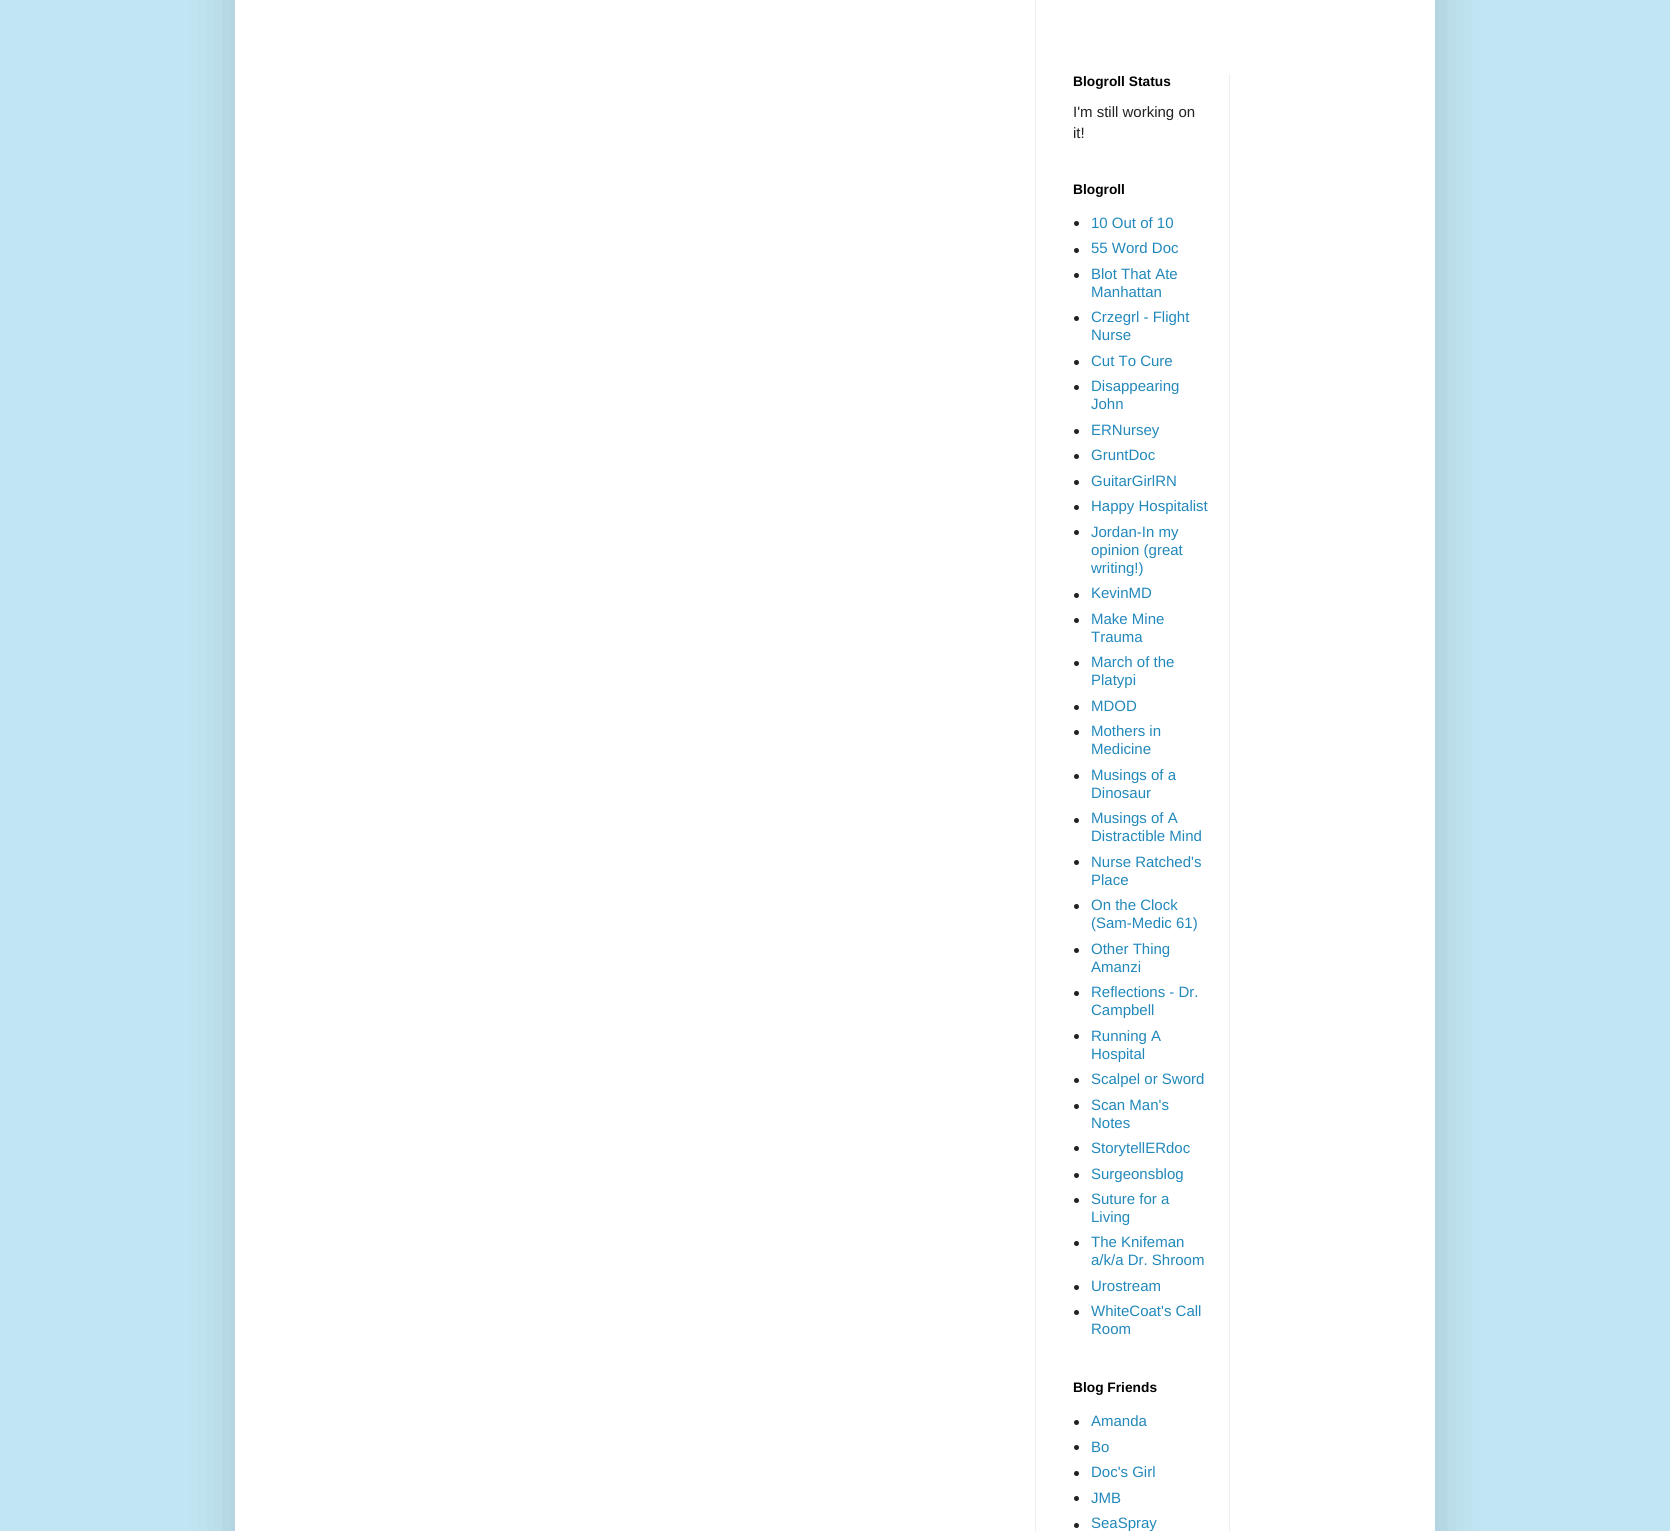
#include <cairo.h>
#include <math.h>
#include <stddef.h>

static cairo_t *ctx;

static void use_color(int r, int g, int b) {
    cairo_set_source_rgb(ctx, r / 255.0, g / 255.0, b / 255.0);
}

static void round_rect(double x, double y, double w, double h, double r) {
    cairo_new_sub_path(ctx);
    cairo_arc(ctx, x + w - r, y + h - r, r, 0, M_PI / 2);
    cairo_arc(ctx, x + r, y + h - r, r, M_PI / 2, M_PI);
    cairo_arc(ctx, x + r, y + r, r, M_PI, 1.5 * M_PI);
    cairo_arc(ctx, x + w - r, y + r, r, 1.5 * M_PI, 2 * M_PI);
    cairo_close_path(ctx);
}

static void shadow(double x, double y, double w, double h, double r, double blur, double alpha) {
    cairo_push_group_with_content(ctx, CAIRO_CONTENT_ALPHA);
    cairo_set_operator(ctx, CAIRO_OPERATOR_SOURCE);
    for (int i = 15; i >= -15 && fmin(w, h) + blur * i / 3 > 0; i -= 2) {
        double e = blur * i / 6;
        cairo_set_source_rgba(ctx, 0, 0, 0, alpha * erfc((i - 1) / 8.5) / 2);
        round_rect(x - e, y - e, w + 2 * e, h + 2 * e, fmax(0, fmin(r + e + blur * .6, fmin(w, h) / 2 + e)));
        cairo_fill(ctx);
    }
    cairo_pattern_t *soft = cairo_pop_group(ctx);
    cairo_mask(ctx, soft);
    cairo_pattern_destroy(soft);
}

int main(void) {
    cairo_surface_t *surface = cairo_image_surface_create(CAIRO_FORMAT_RGB24, 1670, 1531);
    ctx = cairo_create(surface);
    cairo_font_options_t *options = cairo_font_options_create();
    cairo_font_options_set_hint_metrics(options, CAIRO_HINT_METRICS_OFF);
    cairo_font_options_set_hint_style(options, CAIRO_HINT_STYLE_NONE);
    cairo_set_font_options(ctx, options);
    cairo_set_miter_limit(ctx, 4);
    use_color(193, 229, 242);
    cairo_paint(ctx);
    use_color(0, 0, 0);
    shadow(235, -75, 1200, 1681, 0, 25, 0.15);
    use_color(255, 255, 255);
    cairo_rectangle(ctx, 235, 0, 1200, 1531);
    cairo_fill(ctx);
    use_color(238, 238, 238);
    cairo_rectangle(ctx, 1035, 0, 1, 1531);
    cairo_fill(ctx);
    cairo_select_font_face(ctx, "Liberation Sans", CAIRO_FONT_SLANT_NORMAL, CAIRO_FONT_WEIGHT_BOLD);
    cairo_set_font_size(ctx, 13.75);
    use_color(0, 0, 0);
    cairo_move_to(ctx, 1073, 86);
    cairo_show_text(ctx, "Blogroll Status");
    cairo_select_font_face(ctx, "Liberation Sans", CAIRO_FONT_SLANT_NORMAL, CAIRO_FONT_WEIGHT_NORMAL);
    cairo_set_font_size(ctx, 15);
    use_color(34, 34, 34);
    cairo_move_to(ctx, 1073, 117);
    cairo_show_text(ctx, "I'm still working on");
    cairo_move_to(ctx, 1073, 138);
    cairo_show_text(ctx, "it!");
    cairo_select_font_face(ctx, "Liberation Sans", CAIRO_FONT_SLANT_NORMAL, CAIRO_FONT_WEIGHT_BOLD);
    cairo_set_font_size(ctx, 13.75);
    use_color(0, 0, 0);
    cairo_move_to(ctx, 1073, 194);
    cairo_show_text(ctx, "Blogroll");
    use_color(34, 34, 34);
    cairo_new_path(ctx);
    cairo_arc(ctx, 1076.5, 223.5, 2.5, 0, 2 * M_PI);
    cairo_fill(ctx);
    cairo_select_font_face(ctx, "Liberation Sans", CAIRO_FONT_SLANT_NORMAL, CAIRO_FONT_WEIGHT_NORMAL);
    cairo_set_font_size(ctx, 15);
    use_color(34, 136, 187);
    cairo_move_to(ctx, 1091, 228);
    cairo_show_text(ctx, "10 Out of 10");
    use_color(34, 34, 34);
    cairo_new_path(ctx);
    cairo_arc(ctx, 1076.5, 250.5, 2.5, 0, 2 * M_PI);
    cairo_fill(ctx);
    use_color(34, 136, 187);
    cairo_move_to(ctx, 1091, 253);
    cairo_show_text(ctx, "55 Word Doc");
    use_color(34, 34, 34);
    cairo_new_path(ctx);
    cairo_arc(ctx, 1076.5, 275.5, 2.5, 0, 2 * M_PI);
    cairo_fill(ctx);
    use_color(34, 136, 187);
    cairo_move_to(ctx, 1091, 279);
    cairo_show_text(ctx, "Blot That Ate");
    cairo_move_to(ctx, 1091, 297);
    cairo_show_text(ctx, "Manhattan");
    use_color(34, 34, 34);
    cairo_new_path(ctx);
    cairo_arc(ctx, 1076.5, 318.5, 2.5, 0, 2 * M_PI);
    cairo_fill(ctx);
    use_color(34, 136, 187);
    cairo_move_to(ctx, 1091, 322);
    cairo_show_text(ctx, "Crzegrl - Flight");
    cairo_move_to(ctx, 1091, 340);
    cairo_show_text(ctx, "Nurse");
    use_color(34, 34, 34);
    cairo_new_path(ctx);
    cairo_arc(ctx, 1076.5, 362.5, 2.5, 0, 2 * M_PI);
    cairo_fill(ctx);
    use_color(34, 136, 187);
    cairo_move_to(ctx, 1091, 366);
    cairo_show_text(ctx, "Cut To Cure");
    use_color(34, 34, 34);
    cairo_new_path(ctx);
    cairo_arc(ctx, 1076.5, 387.5, 2.5, 0, 2 * M_PI);
    cairo_fill(ctx);
    use_color(34, 136, 187);
    cairo_move_to(ctx, 1091, 391);
    cairo_show_text(ctx, "Disappearing");
    cairo_move_to(ctx, 1091, 409);
    cairo_show_text(ctx, "John");
    use_color(34, 34, 34);
    cairo_new_path(ctx);
    cairo_arc(ctx, 1076.5, 431.5, 2.5, 0, 2 * M_PI);
    cairo_fill(ctx);
    use_color(34, 136, 187);
    cairo_move_to(ctx, 1091, 435);
    cairo_show_text(ctx, "ERNursey");
    use_color(34, 34, 34);
    cairo_new_path(ctx);
    cairo_arc(ctx, 1076.5, 456.5, 2.5, 0, 2 * M_PI);
    cairo_fill(ctx);
    use_color(34, 136, 187);
    cairo_move_to(ctx, 1091, 460);
    cairo_show_text(ctx, "GruntDoc");
    use_color(34, 34, 34);
    cairo_new_path(ctx);
    cairo_arc(ctx, 1076.5, 482.5, 2.5, 0, 2 * M_PI);
    cairo_fill(ctx);
    use_color(34, 136, 187);
    cairo_move_to(ctx, 1091, 486);
    cairo_show_text(ctx, "GuitarGirlRN");
    use_color(34, 34, 34);
    cairo_new_path(ctx);
    cairo_arc(ctx, 1076.5, 507.5, 2.5, 0, 2 * M_PI);
    cairo_fill(ctx);
    use_color(34, 136, 187);
    cairo_move_to(ctx, 1091, 511);
    cairo_show_text(ctx, "Happy Hospitalist");
    use_color(34, 34, 34);
    cairo_new_path(ctx);
    cairo_arc(ctx, 1076.5, 532.5, 2.5, 0, 2 * M_PI);
    cairo_fill(ctx);
    use_color(34, 136, 187);
    cairo_move_to(ctx, 1091, 537);
    cairo_show_text(ctx, "Jordan-In my");
    cairo_move_to(ctx, 1091, 555);
    cairo_show_text(ctx, "opinion (great");
    cairo_move_to(ctx, 1091, 573);
    cairo_show_text(ctx, "writing!)");
    use_color(34, 34, 34);
    cairo_new_path(ctx);
    cairo_arc(ctx, 1076.5, 595.5, 2.5, 0, 2 * M_PI);
    cairo_fill(ctx);
    use_color(34, 136, 187);
    cairo_move_to(ctx, 1091, 598);
    cairo_show_text(ctx, "KevinMD");
    use_color(34, 34, 34);
    cairo_new_path(ctx);
    cairo_arc(ctx, 1076.5, 620.5, 2.5, 0, 2 * M_PI);
    cairo_fill(ctx);
    use_color(34, 136, 187);
    cairo_move_to(ctx, 1091, 624);
    cairo_show_text(ctx, "Make Mine");
    cairo_move_to(ctx, 1091, 642);
    cairo_show_text(ctx, "Trauma");
    use_color(34, 34, 34);
    cairo_new_path(ctx);
    cairo_arc(ctx, 1076.5, 663.5, 2.5, 0, 2 * M_PI);
    cairo_fill(ctx);
    use_color(34, 136, 187);
    cairo_move_to(ctx, 1091, 667);
    cairo_show_text(ctx, "March of the");
    cairo_move_to(ctx, 1091, 685);
    cairo_show_text(ctx, "Platypi");
    use_color(34, 34, 34);
    cairo_new_path(ctx);
    cairo_arc(ctx, 1076.5, 707.5, 2.5, 0, 2 * M_PI);
    cairo_fill(ctx);
    use_color(34, 136, 187);
    cairo_move_to(ctx, 1091, 711);
    cairo_show_text(ctx, "MDOD");
    use_color(34, 34, 34);
    cairo_new_path(ctx);
    cairo_arc(ctx, 1076.5, 732.5, 2.5, 0, 2 * M_PI);
    cairo_fill(ctx);
    use_color(34, 136, 187);
    cairo_move_to(ctx, 1091, 736);
    cairo_show_text(ctx, "Mothers in");
    cairo_move_to(ctx, 1091, 754);
    cairo_show_text(ctx, "Medicine");
    use_color(34, 34, 34);
    cairo_new_path(ctx);
    cairo_arc(ctx, 1076.5, 776.5, 2.5, 0, 2 * M_PI);
    cairo_fill(ctx);
    use_color(34, 136, 187);
    cairo_move_to(ctx, 1091, 780);
    cairo_show_text(ctx, "Musings of a");
    cairo_move_to(ctx, 1091, 798);
    cairo_show_text(ctx, "Dinosaur");
    use_color(34, 34, 34);
    cairo_new_path(ctx);
    cairo_arc(ctx, 1076.5, 820.5, 2.5, 0, 2 * M_PI);
    cairo_fill(ctx);
    use_color(34, 136, 187);
    cairo_move_to(ctx, 1091, 823);
    cairo_show_text(ctx, "Musings of A");
    cairo_move_to(ctx, 1091, 841);
    cairo_show_text(ctx, "Distractible Mind");
    use_color(34, 34, 34);
    cairo_new_path(ctx);
    cairo_arc(ctx, 1076.5, 862.5, 2.5, 0, 2 * M_PI);
    cairo_fill(ctx);
    use_color(34, 136, 187);
    cairo_move_to(ctx, 1091, 867);
    cairo_show_text(ctx, "Nurse Ratched's");
    cairo_move_to(ctx, 1091, 885);
    cairo_show_text(ctx, "Place");
    use_color(34, 34, 34);
    cairo_new_path(ctx);
    cairo_arc(ctx, 1076.5, 906.5, 2.5, 0, 2 * M_PI);
    cairo_fill(ctx);
    use_color(34, 136, 187);
    cairo_move_to(ctx, 1091, 910);
    cairo_show_text(ctx, "On the Clock");
    cairo_move_to(ctx, 1091, 928);
    cairo_show_text(ctx, "(Sam-Medic 61)");
    use_color(34, 34, 34);
    cairo_new_path(ctx);
    cairo_arc(ctx, 1076.5, 950.5, 2.5, 0, 2 * M_PI);
    cairo_fill(ctx);
    use_color(34, 136, 187);
    cairo_move_to(ctx, 1091, 954);
    cairo_show_text(ctx, "Other Thing");
    cairo_move_to(ctx, 1091, 972);
    cairo_show_text(ctx, "Amanzi");
    use_color(34, 34, 34);
    cairo_new_path(ctx);
    cairo_arc(ctx, 1076.5, 993.5, 2.5, 0, 2 * M_PI);
    cairo_fill(ctx);
    use_color(34, 136, 187);
    cairo_move_to(ctx, 1091, 997);
    cairo_show_text(ctx, "Reflections - Dr.");
    cairo_move_to(ctx, 1091, 1015);
    cairo_show_text(ctx, "Campbell");
    use_color(34, 34, 34);
    cairo_new_path(ctx);
    cairo_arc(ctx, 1076.5, 1036.5, 2.5, 0, 2 * M_PI);
    cairo_fill(ctx);
    use_color(34, 136, 187);
    cairo_move_to(ctx, 1091, 1041);
    cairo_show_text(ctx, "Running A");
    cairo_move_to(ctx, 1091, 1059);
    cairo_show_text(ctx, "Hospital");
    use_color(34, 34, 34);
    cairo_new_path(ctx);
    cairo_arc(ctx, 1076.5, 1080.5, 2.5, 0, 2 * M_PI);
    cairo_fill(ctx);
    use_color(34, 136, 187);
    cairo_move_to(ctx, 1091, 1084);
    cairo_show_text(ctx, "Scalpel or Sword");
    use_color(34, 34, 34);
    cairo_new_path(ctx);
    cairo_arc(ctx, 1076.5, 1106.5, 2.5, 0, 2 * M_PI);
    cairo_fill(ctx);
    use_color(34, 136, 187);
    cairo_move_to(ctx, 1091, 1110);
    cairo_show_text(ctx, "Scan Man's");
    cairo_move_to(ctx, 1091, 1128);
    cairo_show_text(ctx, "Notes");
    use_color(34, 34, 34);
    cairo_new_path(ctx);
    cairo_arc(ctx, 1076.5, 1148.5, 2.5, 0, 2 * M_PI);
    cairo_fill(ctx);
    use_color(34, 136, 187);
    cairo_move_to(ctx, 1091, 1153);
    cairo_show_text(ctx, "StorytellERdoc");
    use_color(34, 34, 34);
    cairo_new_path(ctx);
    cairo_arc(ctx, 1076.5, 1175.5, 2.5, 0, 2 * M_PI);
    cairo_fill(ctx);
    use_color(34, 136, 187);
    cairo_move_to(ctx, 1091, 1179);
    cairo_show_text(ctx, "Surgeonsblog");
    use_color(34, 34, 34);
    cairo_new_path(ctx);
    cairo_arc(ctx, 1076.5, 1200.5, 2.5, 0, 2 * M_PI);
    cairo_fill(ctx);
    use_color(34, 136, 187);
    cairo_move_to(ctx, 1091, 1204);
    cairo_show_text(ctx, "Suture for a");
    cairo_move_to(ctx, 1091, 1222);
    cairo_show_text(ctx, "Living");
    use_color(34, 34, 34);
    cairo_new_path(ctx);
    cairo_arc(ctx, 1076.5, 1243.5, 2.5, 0, 2 * M_PI);
    cairo_fill(ctx);
    use_color(34, 136, 187);
    cairo_move_to(ctx, 1091, 1247);
    cairo_show_text(ctx, "The Knifeman");
    cairo_move_to(ctx, 1091, 1265);
    cairo_show_text(ctx, "a/k/a Dr. Shroom");
    use_color(34, 34, 34);
    cairo_new_path(ctx);
    cairo_arc(ctx, 1076.5, 1287.5, 2.5, 0, 2 * M_PI);
    cairo_fill(ctx);
    use_color(34, 136, 187);
    cairo_move_to(ctx, 1091, 1291);
    cairo_show_text(ctx, "Urostream");
    use_color(34, 34, 34);
    cairo_new_path(ctx);
    cairo_arc(ctx, 1076.5, 1312.5, 2.5, 0, 2 * M_PI);
    cairo_fill(ctx);
    use_color(34, 136, 187);
    cairo_move_to(ctx, 1091, 1316);
    cairo_show_text(ctx, "WhiteCoat's Call");
    cairo_move_to(ctx, 1091, 1334);
    cairo_show_text(ctx, "Room");
    cairo_select_font_face(ctx, "Liberation Sans", CAIRO_FONT_SLANT_NORMAL, CAIRO_FONT_WEIGHT_BOLD);
    cairo_set_font_size(ctx, 13.75);
    use_color(0, 0, 0);
    cairo_move_to(ctx, 1073, 1392);
    cairo_show_text(ctx, "Blog Friends");
    use_color(34, 34, 34);
    cairo_new_path(ctx);
    cairo_arc(ctx, 1076.5, 1422.5, 2.5, 0, 2 * M_PI);
    cairo_fill(ctx);
    cairo_select_font_face(ctx, "Liberation Sans", CAIRO_FONT_SLANT_NORMAL, CAIRO_FONT_WEIGHT_NORMAL);
    cairo_set_font_size(ctx, 15);
    use_color(34, 136, 187);
    cairo_move_to(ctx, 1091, 1426);
    cairo_show_text(ctx, "Amanda");
    use_color(34, 34, 34);
    cairo_new_path(ctx);
    cairo_arc(ctx, 1076.5, 1447.5, 2.5, 0, 2 * M_PI);
    cairo_fill(ctx);
    use_color(34, 136, 187);
    cairo_move_to(ctx, 1091, 1452);
    cairo_show_text(ctx, "Bo");
    use_color(34, 34, 34);
    cairo_new_path(ctx);
    cairo_arc(ctx, 1076.5, 1473.5, 2.5, 0, 2 * M_PI);
    cairo_fill(ctx);
    use_color(34, 136, 187);
    cairo_move_to(ctx, 1091, 1477);
    cairo_show_text(ctx, "Doc's Girl");
    use_color(34, 34, 34);
    cairo_new_path(ctx);
    cairo_arc(ctx, 1076.5, 1498.5, 2.5, 0, 2 * M_PI);
    cairo_fill(ctx);
    use_color(34, 136, 187);
    cairo_move_to(ctx, 1091, 1503);
    cairo_show_text(ctx, "JMB");
    use_color(34, 34, 34);
    cairo_new_path(ctx);
    cairo_arc(ctx, 1076.5, 1525.5, 2.5, 0, 2 * M_PI);
    cairo_fill(ctx);
    use_color(34, 136, 187);
    cairo_move_to(ctx, 1091, 1528);
    cairo_show_text(ctx, "SeaSpray");
    use_color(238, 238, 238);
    cairo_rectangle(ctx, 1229, 74, 1, 1457);
    cairo_fill(ctx);
    cairo_surface_write_to_png(surface, "result.png");
    cairo_font_options_destroy(options);
    cairo_destroy(ctx);
    cairo_surface_destroy(surface);
    return 0;
}
